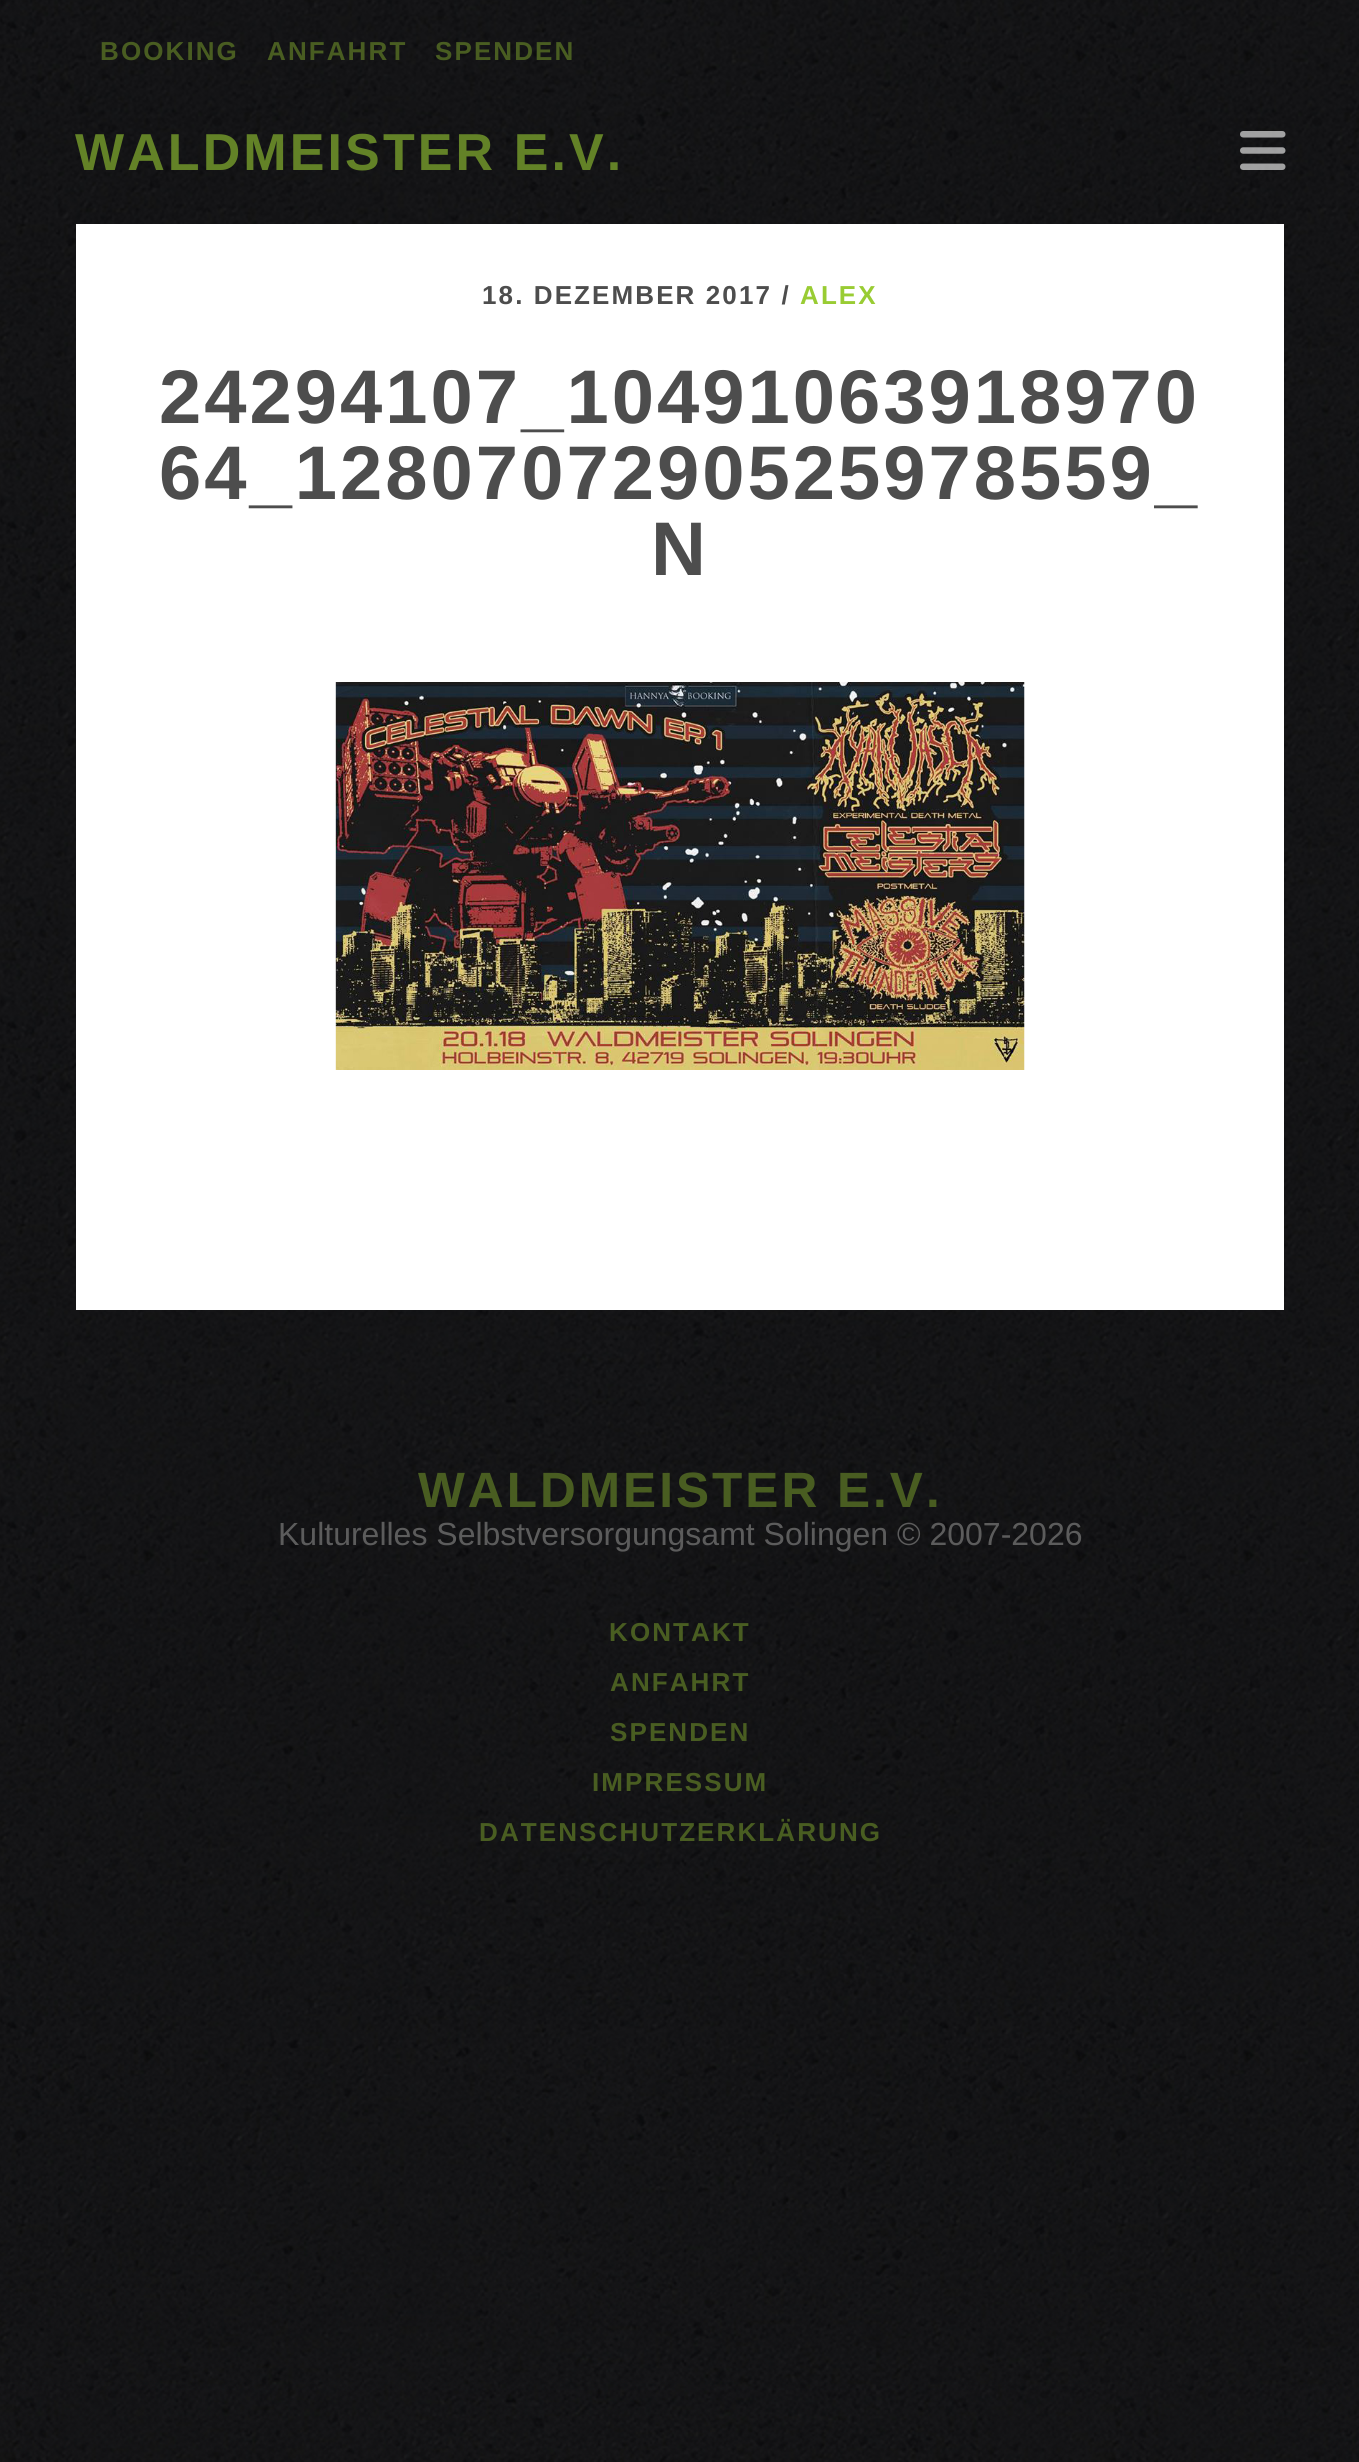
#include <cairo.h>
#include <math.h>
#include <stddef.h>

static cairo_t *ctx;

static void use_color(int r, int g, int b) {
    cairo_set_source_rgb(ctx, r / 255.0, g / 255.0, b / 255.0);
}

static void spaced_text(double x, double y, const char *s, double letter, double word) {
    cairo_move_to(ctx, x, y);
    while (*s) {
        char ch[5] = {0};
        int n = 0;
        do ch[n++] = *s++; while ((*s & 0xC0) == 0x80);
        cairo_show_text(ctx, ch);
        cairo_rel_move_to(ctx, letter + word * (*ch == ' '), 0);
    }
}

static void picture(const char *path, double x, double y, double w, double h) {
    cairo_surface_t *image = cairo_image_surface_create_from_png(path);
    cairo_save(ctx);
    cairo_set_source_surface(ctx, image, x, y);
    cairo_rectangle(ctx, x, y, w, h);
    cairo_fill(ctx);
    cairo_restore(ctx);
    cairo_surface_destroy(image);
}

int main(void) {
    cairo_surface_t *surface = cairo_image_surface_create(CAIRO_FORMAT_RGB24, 1359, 2462);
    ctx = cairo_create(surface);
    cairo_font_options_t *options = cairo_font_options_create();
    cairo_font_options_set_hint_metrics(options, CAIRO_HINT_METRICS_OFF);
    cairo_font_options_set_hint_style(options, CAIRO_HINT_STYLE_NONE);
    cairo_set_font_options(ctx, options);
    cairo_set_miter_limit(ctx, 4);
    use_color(255, 255, 255);
    cairo_paint(ctx);
    picture("img1.png", 0, 0, 1359, 2462);
    cairo_select_font_face(ctx, "Liberation Sans", CAIRO_FONT_SLANT_NORMAL, CAIRO_FONT_WEIGHT_BOLD);
    cairo_set_font_size(ctx, 26);
    use_color(73, 93, 33);
    spaced_text(100, 60, "BOOKING", 2.1, 0);
    spaced_text(267, 60, "ANFAHRT", 2.1, 0);
    spaced_text(435, 60, "SPENDEN", 2.1, 0);
    cairo_set_font_size(ctx, 52);
    use_color(99, 130, 39);
    spaced_text(75, 170, "WALDMEISTER E.V.", 3.1, 0);
    picture("img2.png", 1240, 131, 46, 39);
    use_color(255, 255, 255);
    cairo_rectangle(ctx, 76, 224, 1208, 1086);
    cairo_fill(ctx);
    cairo_set_font_size(ctx, 26);
    use_color(77, 77, 77);
    spaced_text(482, 304, "18. DEZEMBER 2017 /", 2.1, 0);
    use_color(153, 204, 51);
    spaced_text(800, 304, "ALEX", 2.1, 0);
    cairo_set_font_size(ctx, 76);
    use_color(77, 77, 77);
    spaced_text(159, 423, "24294107_10491063918970", 3, 0);
    spaced_text(159, 499, "64_1280707290525978559_", 3, 0);
    spaced_text(651, 575, "N", 3, 0);
    picture("img3.png", 335, 682, 690, 388);
    cairo_set_font_size(ctx, 49.6);
    use_color(73, 93, 33);
    spaced_text(418, 1507, "WALDMEISTER E.V.", 3, 0);
    cairo_select_font_face(ctx, "Liberation Sans", CAIRO_FONT_SLANT_NORMAL, CAIRO_FONT_WEIGHT_NORMAL);
    cairo_set_font_size(ctx, 32);
    use_color(92, 92, 92);
    cairo_move_to(ctx, 278, 1545);
    cairo_show_text(ctx, "Kulturelles Selbstversorgungsamt Solingen © 2007-2026");
    cairo_select_font_face(ctx, "Liberation Sans", CAIRO_FONT_SLANT_NORMAL, CAIRO_FONT_WEIGHT_BOLD);
    cairo_set_font_size(ctx, 26);
    use_color(73, 93, 33);
    spaced_text(609, 1641, "KONTAKT", 2.1, 0);
    spaced_text(610, 1691, "ANFAHRT", 2.1, 0);
    spaced_text(610, 1741, "SPENDEN", 2.1, 0);
    spaced_text(592, 1791, "IMPRESSUM", 2.1, 0);
    spaced_text(479, 1841, "DATENSCHUTZERKLÄRUNG", 2.1, 0);
    cairo_surface_write_to_png(surface, "result.png");
    cairo_font_options_destroy(options);
    cairo_destroy(ctx);
    cairo_surface_destroy(surface);
    return 0;
}
